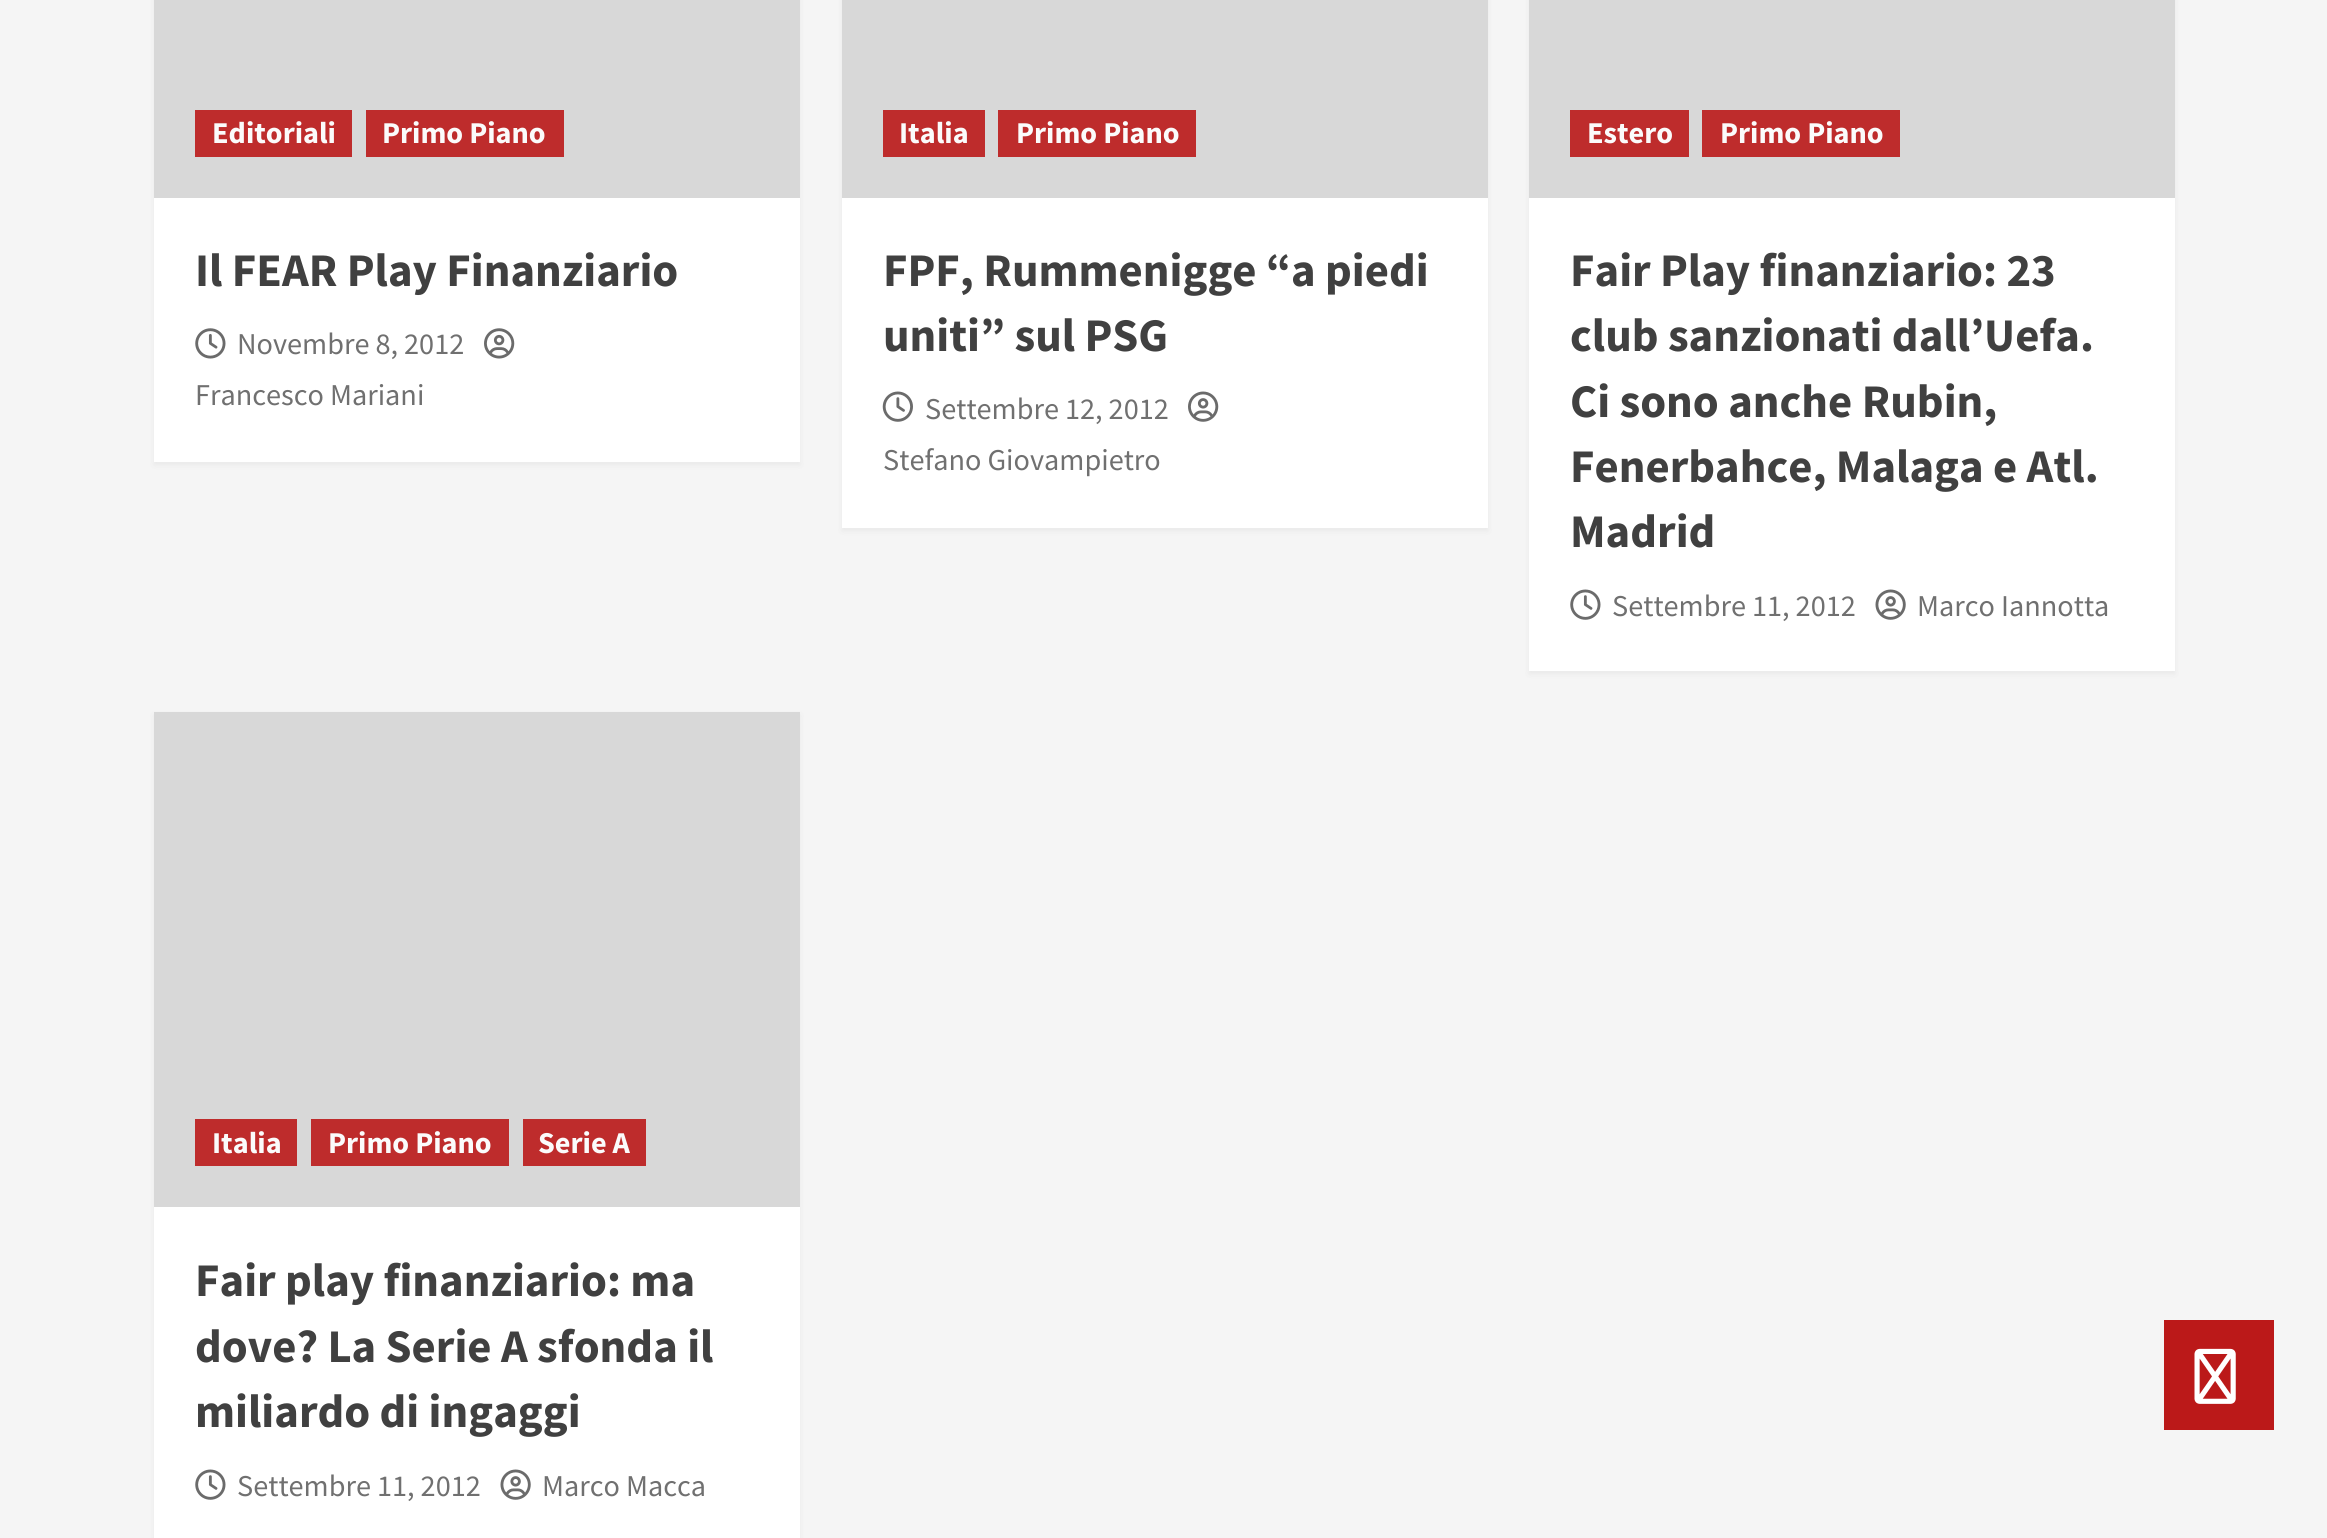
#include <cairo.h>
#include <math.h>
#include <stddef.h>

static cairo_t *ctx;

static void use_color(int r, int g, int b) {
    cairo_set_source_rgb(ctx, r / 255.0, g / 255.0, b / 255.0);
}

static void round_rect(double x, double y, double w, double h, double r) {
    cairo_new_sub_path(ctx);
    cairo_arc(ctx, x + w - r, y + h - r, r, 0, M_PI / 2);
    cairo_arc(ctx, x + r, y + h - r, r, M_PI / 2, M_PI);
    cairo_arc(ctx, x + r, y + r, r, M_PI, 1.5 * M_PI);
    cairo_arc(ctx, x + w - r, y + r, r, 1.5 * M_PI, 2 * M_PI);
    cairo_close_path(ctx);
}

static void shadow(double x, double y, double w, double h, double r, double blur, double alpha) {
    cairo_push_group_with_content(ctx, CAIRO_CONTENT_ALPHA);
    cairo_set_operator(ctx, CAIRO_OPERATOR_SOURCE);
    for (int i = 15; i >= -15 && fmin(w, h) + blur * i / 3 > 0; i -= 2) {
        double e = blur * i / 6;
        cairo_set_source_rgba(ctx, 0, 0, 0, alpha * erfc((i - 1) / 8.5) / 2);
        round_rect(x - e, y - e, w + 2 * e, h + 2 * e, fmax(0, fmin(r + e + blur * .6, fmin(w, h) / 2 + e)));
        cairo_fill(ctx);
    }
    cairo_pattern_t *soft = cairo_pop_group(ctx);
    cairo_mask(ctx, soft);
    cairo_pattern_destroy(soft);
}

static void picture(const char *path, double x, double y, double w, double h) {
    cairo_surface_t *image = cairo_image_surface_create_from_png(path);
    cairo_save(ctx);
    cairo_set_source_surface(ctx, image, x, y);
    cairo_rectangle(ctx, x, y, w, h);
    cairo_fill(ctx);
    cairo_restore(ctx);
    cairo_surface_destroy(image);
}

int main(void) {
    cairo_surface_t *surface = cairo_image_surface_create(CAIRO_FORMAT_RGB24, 2327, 1538);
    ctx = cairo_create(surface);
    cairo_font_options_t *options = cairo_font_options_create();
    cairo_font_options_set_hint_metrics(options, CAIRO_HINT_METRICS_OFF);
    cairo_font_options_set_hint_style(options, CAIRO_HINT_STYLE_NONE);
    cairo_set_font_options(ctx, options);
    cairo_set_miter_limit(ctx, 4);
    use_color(245, 245, 245);
    cairo_paint(ctx);
    use_color(0, 0, 0);
    shadow(154, -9, 646, 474, 0, 3, 0.05);
    use_color(255, 255, 255);
    cairo_rectangle(ctx, 154, 198, 646, 264);
    cairo_fill(ctx);
    use_color(216, 216, 216);
    cairo_rectangle(ctx, 154, 0, 646, 198);
    cairo_fill(ctx);
    use_color(190, 44, 44);
    cairo_rectangle(ctx, 195, 110, 157, 47);
    cairo_fill(ctx);
    cairo_select_font_face(ctx, "Source Sans Pro", CAIRO_FONT_SLANT_NORMAL, CAIRO_FONT_WEIGHT_BOLD);
    cairo_set_font_size(ctx, 30.25);
    use_color(251, 251, 251);
    cairo_move_to(ctx, 212, 143);
    cairo_show_text(ctx, "Editoriali");
    use_color(190, 44, 44);
    cairo_rectangle(ctx, 366, 110, 198, 47);
    cairo_fill(ctx);
    use_color(251, 251, 251);
    cairo_move_to(ctx, 382, 143);
    cairo_show_text(ctx, "Primo Piano");
    cairo_set_font_size(ctx, 46.75);
    use_color(64, 64, 64);
    cairo_move_to(ctx, 195, 286);
    cairo_show_text(ctx, "Il FEAR Play Finanziario");
    picture("img1.png", 195, 328, 31, 31);
    cairo_select_font_face(ctx, "Source Sans Pro", CAIRO_FONT_SLANT_NORMAL, CAIRO_FONT_WEIGHT_NORMAL);
    cairo_set_font_size(ctx, 30.25);
    use_color(112, 112, 112);
    cairo_move_to(ctx, 237, 354);
    cairo_show_text(ctx, "Novembre 8, 2012");
    picture("img2.png", 484, 328, 31, 31);
    cairo_move_to(ctx, 195, 405);
    cairo_show_text(ctx, "Francesco Mariani");
    use_color(0, 0, 0);
    shadow(842, -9, 646, 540, 0, 3, 0.05);
    use_color(255, 255, 255);
    cairo_rectangle(ctx, 842, 198, 646, 330);
    cairo_fill(ctx);
    use_color(216, 216, 216);
    cairo_rectangle(ctx, 842, 0, 646, 198);
    cairo_fill(ctx);
    use_color(190, 44, 44);
    cairo_rectangle(ctx, 883, 110, 102, 47);
    cairo_fill(ctx);
    cairo_select_font_face(ctx, "Source Sans Pro", CAIRO_FONT_SLANT_NORMAL, CAIRO_FONT_WEIGHT_BOLD);
    use_color(251, 251, 251);
    cairo_move_to(ctx, 899, 143);
    cairo_show_text(ctx, "Italia");
    use_color(190, 44, 44);
    cairo_rectangle(ctx, 998, 110, 198, 47);
    cairo_fill(ctx);
    use_color(251, 251, 251);
    cairo_move_to(ctx, 1016, 143);
    cairo_show_text(ctx, "Primo Piano");
    cairo_set_font_size(ctx, 46.75);
    use_color(64, 64, 64);
    cairo_move_to(ctx, 883, 286);
    cairo_show_text(ctx, "FPF, Rummenigge “a piedi");
    cairo_move_to(ctx, 883, 351);
    cairo_show_text(ctx, "uniti” sul PSG");
    picture("img3.png", 882, 391, 31, 31);
    cairo_select_font_face(ctx, "Source Sans Pro", CAIRO_FONT_SLANT_NORMAL, CAIRO_FONT_WEIGHT_NORMAL);
    cairo_set_font_size(ctx, 30.25);
    use_color(112, 112, 112);
    cairo_move_to(ctx, 925, 419);
    cairo_show_text(ctx, "Settembre 12, 2012");
    picture("img4.png", 1188, 391, 31, 31);
    cairo_move_to(ctx, 883, 470);
    cairo_show_text(ctx, "Stefano Giovampietro");
    use_color(0, 0, 0);
    shadow(1529, -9, 646, 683, 0, 3, 0.05);
    use_color(255, 255, 255);
    cairo_rectangle(ctx, 1529, 198, 646, 473);
    cairo_fill(ctx);
    use_color(216, 216, 216);
    cairo_rectangle(ctx, 1529, 0, 646, 198);
    cairo_fill(ctx);
    use_color(190, 44, 44);
    cairo_rectangle(ctx, 1570, 110, 119, 47);
    cairo_fill(ctx);
    cairo_select_font_face(ctx, "Source Sans Pro", CAIRO_FONT_SLANT_NORMAL, CAIRO_FONT_WEIGHT_BOLD);
    use_color(251, 251, 251);
    cairo_move_to(ctx, 1587, 143);
    cairo_show_text(ctx, "Estero");
    use_color(190, 44, 44);
    cairo_rectangle(ctx, 1702, 110, 198, 47);
    cairo_fill(ctx);
    use_color(251, 251, 251);
    cairo_move_to(ctx, 1720, 143);
    cairo_show_text(ctx, "Primo Piano");
    cairo_set_font_size(ctx, 46.75);
    use_color(64, 64, 64);
    cairo_move_to(ctx, 1570, 286);
    cairo_show_text(ctx, "Fair Play finanziario: 23");
    cairo_move_to(ctx, 1570, 351);
    cairo_show_text(ctx, "club sanzionati dall’Uefa.");
    cairo_move_to(ctx, 1570, 417);
    cairo_show_text(ctx, "Ci sono anche Rubin,");
    cairo_move_to(ctx, 1570, 482);
    cairo_show_text(ctx, "Fenerbahce, Malaga e Atl.");
    cairo_move_to(ctx, 1570, 547);
    cairo_show_text(ctx, "Madrid");
    picture("img5.png", 1570, 589, 31, 31);
    cairo_select_font_face(ctx, "Source Sans Pro", CAIRO_FONT_SLANT_NORMAL, CAIRO_FONT_WEIGHT_NORMAL);
    cairo_set_font_size(ctx, 30.25);
    use_color(112, 112, 112);
    cairo_move_to(ctx, 1612, 616);
    cairo_show_text(ctx, "Settembre 11, 2012");
    picture("img6.png", 1875, 589, 31, 31);
    cairo_move_to(ctx, 1917, 616);
    cairo_show_text(ctx, "Marco Iannotta");
    use_color(0, 0, 0);
    shadow(154, 715, 646, 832, 0, 3, 0.05);
    use_color(255, 255, 255);
    cairo_rectangle(ctx, 154, 1207, 646, 331);
    cairo_fill(ctx);
    use_color(216, 216, 216);
    cairo_rectangle(ctx, 154, 712, 646, 495);
    cairo_fill(ctx);
    use_color(190, 44, 44);
    cairo_rectangle(ctx, 195, 1119, 102, 47);
    cairo_fill(ctx);
    cairo_select_font_face(ctx, "Source Sans Pro", CAIRO_FONT_SLANT_NORMAL, CAIRO_FONT_WEIGHT_BOLD);
    use_color(251, 251, 251);
    cairo_move_to(ctx, 212, 1153);
    cairo_show_text(ctx, "Italia");
    use_color(190, 44, 44);
    cairo_rectangle(ctx, 311, 1119, 198, 47);
    cairo_fill(ctx);
    use_color(251, 251, 251);
    cairo_move_to(ctx, 328, 1153);
    cairo_show_text(ctx, "Primo Piano");
    use_color(190, 44, 44);
    cairo_rectangle(ctx, 523, 1119, 123, 47);
    cairo_fill(ctx);
    use_color(251, 251, 251);
    cairo_move_to(ctx, 538, 1153);
    cairo_show_text(ctx, "Serie A");
    cairo_set_font_size(ctx, 46.75);
    use_color(64, 64, 64);
    cairo_move_to(ctx, 195, 1296);
    cairo_show_text(ctx, "Fair play finanziario: ma");
    cairo_move_to(ctx, 195, 1362);
    cairo_show_text(ctx, "dove? La Serie A sfonda il");
    cairo_move_to(ctx, 195, 1427);
    cairo_show_text(ctx, "miliardo di ingaggi");
    picture("img5.png", 195, 1469, 31, 31);
    cairo_select_font_face(ctx, "Source Sans Pro", CAIRO_FONT_SLANT_NORMAL, CAIRO_FONT_WEIGHT_NORMAL);
    cairo_set_font_size(ctx, 30.25);
    use_color(112, 112, 112);
    cairo_move_to(ctx, 237, 1496);
    cairo_show_text(ctx, "Settembre 11, 2012");
    picture("img6.png", 500, 1469, 31, 31);
    cairo_move_to(ctx, 542, 1496);
    cairo_show_text(ctx, "Marco Macca");
    use_color(187, 25, 25);
    cairo_rectangle(ctx, 2164, 1320, 110, 110);
    cairo_fill(ctx);
    picture("img7.png", 2194, 1348, 42, 56);
    cairo_surface_write_to_png(surface, "result.png");
    cairo_font_options_destroy(options);
    cairo_destroy(ctx);
    cairo_surface_destroy(surface);
    return 0;
}
